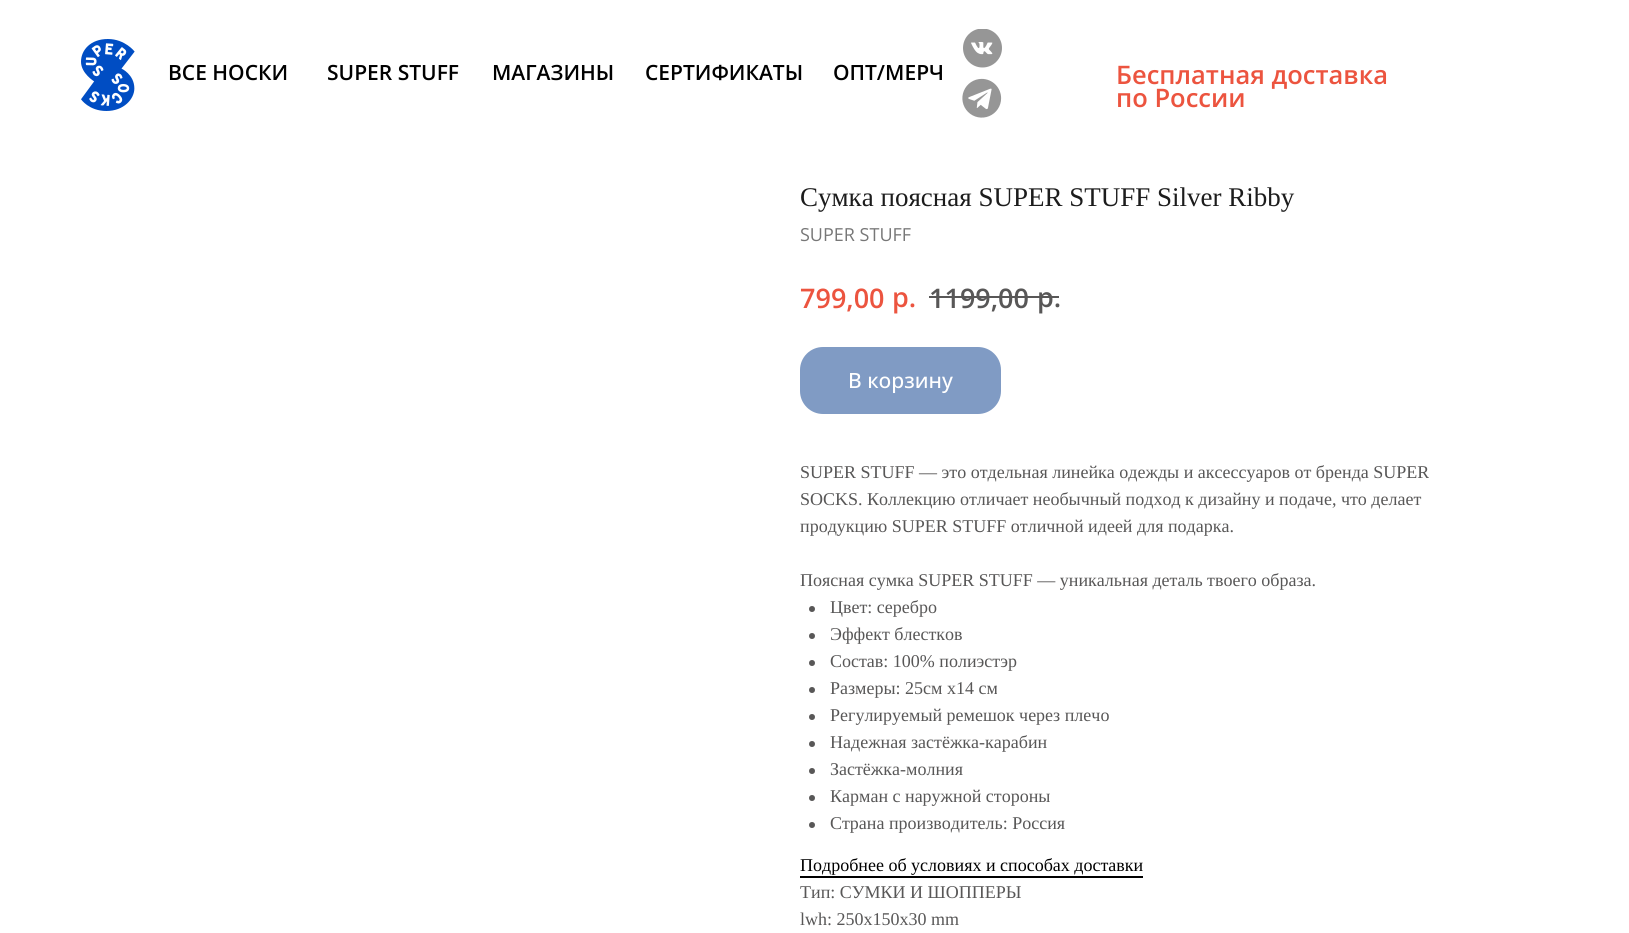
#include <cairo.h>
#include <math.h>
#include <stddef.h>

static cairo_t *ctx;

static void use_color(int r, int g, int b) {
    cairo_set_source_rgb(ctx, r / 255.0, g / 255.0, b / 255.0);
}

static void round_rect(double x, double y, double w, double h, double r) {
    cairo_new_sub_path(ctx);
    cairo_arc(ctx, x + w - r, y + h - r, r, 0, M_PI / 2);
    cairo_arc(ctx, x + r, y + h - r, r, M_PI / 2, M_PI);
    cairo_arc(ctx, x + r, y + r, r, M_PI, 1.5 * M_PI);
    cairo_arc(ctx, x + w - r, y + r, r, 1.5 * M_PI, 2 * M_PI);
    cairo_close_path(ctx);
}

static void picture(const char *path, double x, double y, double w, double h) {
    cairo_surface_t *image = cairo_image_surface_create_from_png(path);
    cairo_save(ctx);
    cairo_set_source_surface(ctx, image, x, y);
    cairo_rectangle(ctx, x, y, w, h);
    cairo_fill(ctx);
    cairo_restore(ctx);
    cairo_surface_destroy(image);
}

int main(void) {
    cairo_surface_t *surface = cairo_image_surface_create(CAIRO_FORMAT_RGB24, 1629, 933);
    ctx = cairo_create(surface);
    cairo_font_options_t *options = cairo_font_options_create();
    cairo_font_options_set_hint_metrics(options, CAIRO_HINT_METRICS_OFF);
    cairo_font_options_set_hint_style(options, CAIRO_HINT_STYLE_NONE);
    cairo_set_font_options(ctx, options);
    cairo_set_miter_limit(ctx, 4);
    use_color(255, 255, 255);
    cairo_paint(ctx);
    picture("img1.png", 81, 39, 54, 72);
    cairo_select_font_face(ctx, "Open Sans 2 SemiBold", CAIRO_FONT_SLANT_NORMAL, CAIRO_FONT_WEIGHT_NORMAL);
    cairo_set_font_size(ctx, 21);
    use_color(0, 0, 0);
    cairo_move_to(ctx, 168, 80);
    cairo_show_text(ctx, "ВСЕ НОСКИ");
    cairo_move_to(ctx, 327, 80);
    cairo_show_text(ctx, "SUPER STUFF");
    cairo_move_to(ctx, 492, 80);
    cairo_show_text(ctx, "МАГАЗИНЫ");
    cairo_move_to(ctx, 645, 80);
    cairo_show_text(ctx, "СЕРТИФИКАТЫ");
    cairo_move_to(ctx, 833, 80);
    cairo_show_text(ctx, "ОПТ/МЕРЧ");
    picture("img2.png", 963, 29, 39, 39);
    cairo_set_font_size(ctx, 25.5);
    use_color(236, 84, 63);
    cairo_move_to(ctx, 1116, 84);
    cairo_show_text(ctx, "Бесплатная доставка");
    cairo_move_to(ctx, 1116, 107);
    cairo_show_text(ctx, "по России");
    picture("img3.png", 962, 78, 40, 40);
    cairo_select_font_face(ctx, "Liberation Serif", CAIRO_FONT_SLANT_NORMAL, CAIRO_FONT_WEIGHT_NORMAL);
    cairo_set_font_size(ctx, 27);
    use_color(28, 28, 28);
    cairo_move_to(ctx, 800, 206);
    cairo_show_text(ctx, "Сумка поясная SUPER STUFF Silver Ribby");
    cairo_select_font_face(ctx, "Open Sans", CAIRO_FONT_SLANT_NORMAL, CAIRO_FONT_WEIGHT_NORMAL);
    cairo_set_font_size(ctx, 18);
    use_color(119, 119, 119);
    cairo_move_to(ctx, 800, 241);
    cairo_show_text(ctx, "SUPER STUFF");
    cairo_select_font_face(ctx, "Open Sans SemiBold", CAIRO_FONT_SLANT_NORMAL, CAIRO_FONT_WEIGHT_NORMAL);
    cairo_set_font_size(ctx, 27);
    use_color(236, 84, 63);
    cairo_move_to(ctx, 800, 308);
    cairo_show_text(ctx, "799,00");
    cairo_move_to(ctx, 892, 307);
    cairo_show_text(ctx, "р.");
    use_color(88, 87, 87);
    cairo_move_to(ctx, 929, 308);
    cairo_show_text(ctx, "1199,00");
    cairo_move_to(ctx, 1037, 307);
    cairo_show_text(ctx, "р.");
    cairo_rectangle(ctx, 929, 296, 130, 2);
    cairo_fill(ctx);
    use_color(128, 155, 196);
    round_rect(800, 347, 201, 67, 23);
    cairo_fill(ctx);
    cairo_select_font_face(ctx, "Open Sans Medium", CAIRO_FONT_SLANT_NORMAL, CAIRO_FONT_WEIGHT_NORMAL);
    cairo_set_font_size(ctx, 21);
    use_color(255, 255, 255);
    cairo_move_to(ctx, 848, 388);
    cairo_show_text(ctx, "В корзину");
    cairo_select_font_face(ctx, "Liberation Serif", CAIRO_FONT_SLANT_NORMAL, CAIRO_FONT_WEIGHT_NORMAL);
    cairo_set_font_size(ctx, 18);
    use_color(88, 87, 87);
    cairo_move_to(ctx, 800, 478);
    cairo_show_text(ctx, "SUPER STUFF — это отдельная линейка одежды и аксессуаров от бренда SUPER");
    cairo_move_to(ctx, 800, 505);
    cairo_show_text(ctx, "SOCKS. Коллекцию отличает необычный подход к дизайну и подаче, что делает");
    cairo_move_to(ctx, 800, 532);
    cairo_show_text(ctx, "продукцию SUPER STUFF отличной идеей для подарка.");
    cairo_move_to(ctx, 800, 586);
    cairo_show_text(ctx, "Поясная сумка SUPER STUFF — уникальная деталь твоего образа.");
    cairo_new_path(ctx);
    cairo_arc(ctx, 812, 609, 3, 0, 2 * M_PI);
    cairo_fill(ctx);
    cairo_move_to(ctx, 830, 613);
    cairo_show_text(ctx, "Цвет: серебро");
    cairo_new_path(ctx);
    cairo_arc(ctx, 812, 636, 3, 0, 2 * M_PI);
    cairo_fill(ctx);
    cairo_move_to(ctx, 830, 640);
    cairo_show_text(ctx, "Эффект блестков");
    cairo_new_path(ctx);
    cairo_arc(ctx, 812, 663, 3, 0, 2 * M_PI);
    cairo_fill(ctx);
    cairo_move_to(ctx, 830, 667);
    cairo_show_text(ctx, "Состав: 100% полиэстэр");
    cairo_new_path(ctx);
    cairo_arc(ctx, 812, 690, 3, 0, 2 * M_PI);
    cairo_fill(ctx);
    cairo_move_to(ctx, 830, 694);
    cairo_show_text(ctx, "Размеры: 25см х14 см");
    cairo_new_path(ctx);
    cairo_arc(ctx, 812, 717, 3, 0, 2 * M_PI);
    cairo_fill(ctx);
    cairo_move_to(ctx, 830, 721);
    cairo_show_text(ctx, "Регулируемый ремешок через плечо");
    cairo_new_path(ctx);
    cairo_arc(ctx, 812, 744, 3, 0, 2 * M_PI);
    cairo_fill(ctx);
    cairo_move_to(ctx, 830, 748);
    cairo_show_text(ctx, "Надежная застёжка-карабин");
    cairo_new_path(ctx);
    cairo_arc(ctx, 812, 771, 3, 0, 2 * M_PI);
    cairo_fill(ctx);
    cairo_move_to(ctx, 830, 775);
    cairo_show_text(ctx, "Застёжка-молния");
    cairo_new_path(ctx);
    cairo_arc(ctx, 812, 798, 3, 0, 2 * M_PI);
    cairo_fill(ctx);
    cairo_move_to(ctx, 830, 802);
    cairo_show_text(ctx, "Карман с наружной стороны");
    cairo_new_path(ctx);
    cairo_arc(ctx, 812, 825, 3, 0, 2 * M_PI);
    cairo_fill(ctx);
    cairo_move_to(ctx, 830, 829);
    cairo_show_text(ctx, "Страна производитель: Россия");
    use_color(0, 0, 0);
    cairo_move_to(ctx, 800, 871);
    cairo_show_text(ctx, "Подробнее об условиях и способах доставки");
    cairo_rectangle(ctx, 800, 876, 343, 2);
    cairo_fill(ctx);
    use_color(88, 87, 87);
    cairo_move_to(ctx, 800, 898);
    cairo_show_text(ctx, "Тип: СУМКИ И ШОППЕРЫ");
    cairo_move_to(ctx, 800, 925);
    cairo_show_text(ctx, "lwh: 250x150x30 mm");
    cairo_surface_write_to_png(surface, "result.png");
    cairo_font_options_destroy(options);
    cairo_destroy(ctx);
    cairo_surface_destroy(surface);
    return 0;
}
